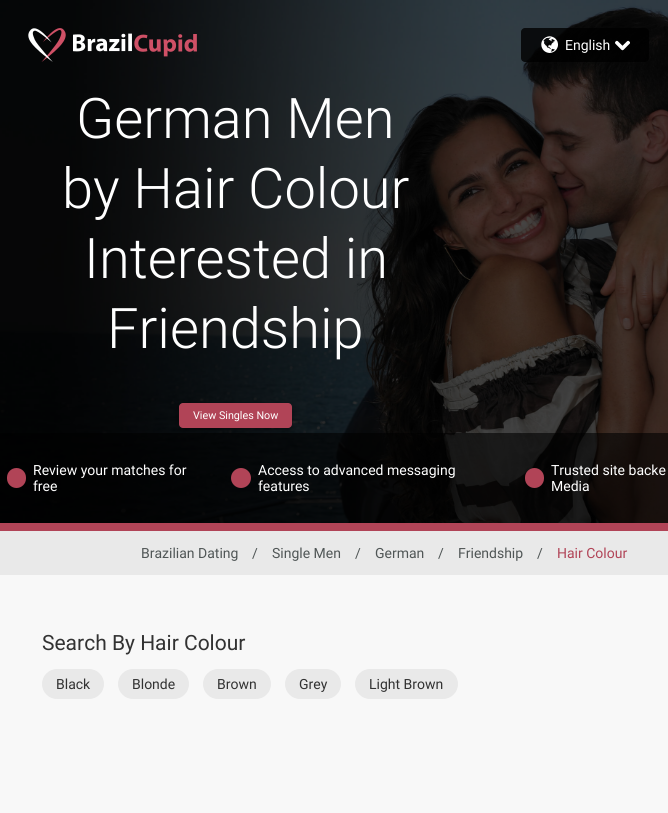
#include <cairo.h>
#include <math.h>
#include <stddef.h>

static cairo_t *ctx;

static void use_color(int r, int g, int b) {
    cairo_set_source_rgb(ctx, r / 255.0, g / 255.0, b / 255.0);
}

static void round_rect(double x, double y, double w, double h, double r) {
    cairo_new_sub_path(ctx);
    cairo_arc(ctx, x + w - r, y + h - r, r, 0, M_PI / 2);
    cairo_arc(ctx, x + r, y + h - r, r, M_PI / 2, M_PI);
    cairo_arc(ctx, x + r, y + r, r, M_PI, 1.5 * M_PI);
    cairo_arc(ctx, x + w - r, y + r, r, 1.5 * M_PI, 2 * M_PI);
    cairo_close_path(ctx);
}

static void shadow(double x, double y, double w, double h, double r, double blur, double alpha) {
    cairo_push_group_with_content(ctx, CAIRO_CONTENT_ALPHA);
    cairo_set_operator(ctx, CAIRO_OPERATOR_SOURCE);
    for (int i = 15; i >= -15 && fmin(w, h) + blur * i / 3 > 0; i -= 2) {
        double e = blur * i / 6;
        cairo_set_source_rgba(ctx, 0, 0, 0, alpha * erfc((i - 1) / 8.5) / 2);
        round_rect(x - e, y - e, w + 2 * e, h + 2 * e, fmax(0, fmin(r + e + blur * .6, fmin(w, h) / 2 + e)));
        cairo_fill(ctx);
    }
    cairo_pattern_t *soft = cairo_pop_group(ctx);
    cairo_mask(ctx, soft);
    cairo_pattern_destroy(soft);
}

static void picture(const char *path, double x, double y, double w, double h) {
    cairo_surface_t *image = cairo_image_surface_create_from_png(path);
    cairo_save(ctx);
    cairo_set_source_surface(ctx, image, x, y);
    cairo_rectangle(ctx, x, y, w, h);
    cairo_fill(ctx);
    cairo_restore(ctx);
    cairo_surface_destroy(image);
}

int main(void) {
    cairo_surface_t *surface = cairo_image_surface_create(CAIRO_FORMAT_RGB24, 668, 813);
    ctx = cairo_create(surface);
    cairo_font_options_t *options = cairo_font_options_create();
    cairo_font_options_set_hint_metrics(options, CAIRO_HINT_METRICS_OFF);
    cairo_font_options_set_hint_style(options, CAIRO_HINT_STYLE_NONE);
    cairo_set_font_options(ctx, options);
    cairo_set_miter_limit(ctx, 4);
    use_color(248, 248, 248);
    cairo_paint(ctx);
    picture("img5.png", 0, 0, 668, 523);
    picture("img1.png", 28, 28, 38, 34);
    picture("img2.png", 73, 33, 124, 24);
    cairo_set_source_rgba(ctx, 0, 0, 0, 0.8);
    round_rect(521, 28, 128, 34, 4);
    cairo_fill(ctx);
    picture("img3.png", 541, 36, 17, 17);
    cairo_select_font_face(ctx, "Roboto", CAIRO_FONT_SLANT_NORMAL, CAIRO_FONT_WEIGHT_NORMAL);
    cairo_set_font_size(ctx, 14);
    use_color(255, 255, 255);
    cairo_move_to(ctx, 565, 50);
    cairo_show_text(ctx, "English");
    picture("img4.png", 615, 40, 15, 11);
    cairo_select_font_face(ctx, "Roboto Light", CAIRO_FONT_SLANT_NORMAL, CAIRO_FONT_WEIGHT_NORMAL);
    cairo_set_font_size(ctx, 56);
    cairo_move_to(ctx, 76, 138);
    cairo_show_text(ctx, "German Men");
    cairo_move_to(ctx, 62, 208);
    cairo_show_text(ctx, "by Hair Colour");
    cairo_move_to(ctx, 84, 278);
    cairo_show_text(ctx, "Interested in");
    cairo_move_to(ctx, 107, 348);
    cairo_show_text(ctx, "Friendship");
    cairo_set_source_rgba(ctx, 0, 0, 0, 0.6);
    cairo_rectangle(ctx, 0, 433, 668, 90);
    cairo_fill(ctx);
    use_color(0, 0, 0);
    shadow(179, 406, 113, 25, 4, 3, 0.4);
    use_color(177, 68, 87);
    round_rect(179, 403, 113, 25, 4);
    cairo_fill(ctx);
    cairo_select_font_face(ctx, "Roboto", CAIRO_FONT_SLANT_NORMAL, CAIRO_FONT_WEIGHT_NORMAL);
    cairo_set_font_size(ctx, 10.75);
    use_color(255, 255, 255);
    cairo_move_to(ctx, 193, 419);
    cairo_show_text(ctx, "View Singles Now");
    use_color(177, 68, 87);
    round_rect(7, 468, 19, 20, 9.5);
    cairo_fill(ctx);
    cairo_set_font_size(ctx, 14);
    use_color(255, 255, 255);
    cairo_move_to(ctx, 33, 475);
    cairo_show_text(ctx, "Review your matches for");
    cairo_move_to(ctx, 33, 491);
    cairo_show_text(ctx, "free");
    use_color(177, 68, 87);
    cairo_new_path(ctx);
    cairo_arc(ctx, 241, 478, 10, 0, 2 * M_PI);
    cairo_fill(ctx);
    use_color(255, 255, 255);
    cairo_move_to(ctx, 258, 475);
    cairo_show_text(ctx, "Access to advanced messaging");
    cairo_move_to(ctx, 258, 491);
    cairo_show_text(ctx, "features");
    use_color(177, 68, 87);
    round_rect(525, 468, 19, 20, 9.5);
    cairo_fill(ctx);
    use_color(255, 255, 255);
    cairo_move_to(ctx, 551, 475);
    cairo_show_text(ctx, "Trusted site backe");
    cairo_move_to(ctx, 551, 491);
    cairo_show_text(ctx, "Media");
    use_color(177, 68, 87);
    cairo_rectangle(ctx, 0, 523, 668, 8);
    cairo_fill(ctx);
    use_color(233, 233, 233);
    cairo_rectangle(ctx, 0, 531, 668, 44);
    cairo_fill(ctx);
    use_color(80, 86, 86);
    cairo_move_to(ctx, 141, 558);
    cairo_show_text(ctx, "Brazilian Dating");
    cairo_move_to(ctx, 252, 558);
    cairo_show_text(ctx, "/");
    cairo_move_to(ctx, 272, 558);
    cairo_show_text(ctx, "Single Men");
    cairo_move_to(ctx, 355, 558);
    cairo_show_text(ctx, "/");
    cairo_move_to(ctx, 375, 558);
    cairo_show_text(ctx, "German");
    cairo_move_to(ctx, 438, 558);
    cairo_show_text(ctx, "/");
    cairo_move_to(ctx, 458, 558);
    cairo_show_text(ctx, "Friendship");
    cairo_move_to(ctx, 537, 558);
    cairo_show_text(ctx, "/");
    use_color(177, 68, 87);
    cairo_move_to(ctx, 557, 558);
    cairo_show_text(ctx, "Hair Colour");
    cairo_set_font_size(ctx, 21);
    use_color(50, 50, 50);
    cairo_move_to(ctx, 42, 650);
    cairo_show_text(ctx, "Search By Hair Colour");
    use_color(233, 233, 233);
    round_rect(42, 669, 62, 30, 15);
    cairo_fill(ctx);
    cairo_set_font_size(ctx, 14);
    use_color(50, 50, 50);
    cairo_move_to(ctx, 56, 689);
    cairo_show_text(ctx, "Black");
    use_color(233, 233, 233);
    round_rect(118, 669, 71, 30, 15);
    cairo_fill(ctx);
    use_color(50, 50, 50);
    cairo_move_to(ctx, 132, 689);
    cairo_show_text(ctx, "Blonde");
    use_color(233, 233, 233);
    round_rect(203, 669, 68, 30, 15);
    cairo_fill(ctx);
    use_color(50, 50, 50);
    cairo_move_to(ctx, 217, 689);
    cairo_show_text(ctx, "Brown");
    use_color(233, 233, 233);
    round_rect(285, 669, 56, 30, 15);
    cairo_fill(ctx);
    use_color(50, 50, 50);
    cairo_move_to(ctx, 299, 689);
    cairo_show_text(ctx, "Grey");
    use_color(233, 233, 233);
    round_rect(355, 669, 103, 30, 15);
    cairo_fill(ctx);
    use_color(50, 50, 50);
    cairo_move_to(ctx, 369, 689);
    cairo_show_text(ctx, "Light Brown");
    cairo_surface_write_to_png(surface, "result.png");
    cairo_font_options_destroy(options);
    cairo_destroy(ctx);
    cairo_surface_destroy(surface);
    return 0;
}
